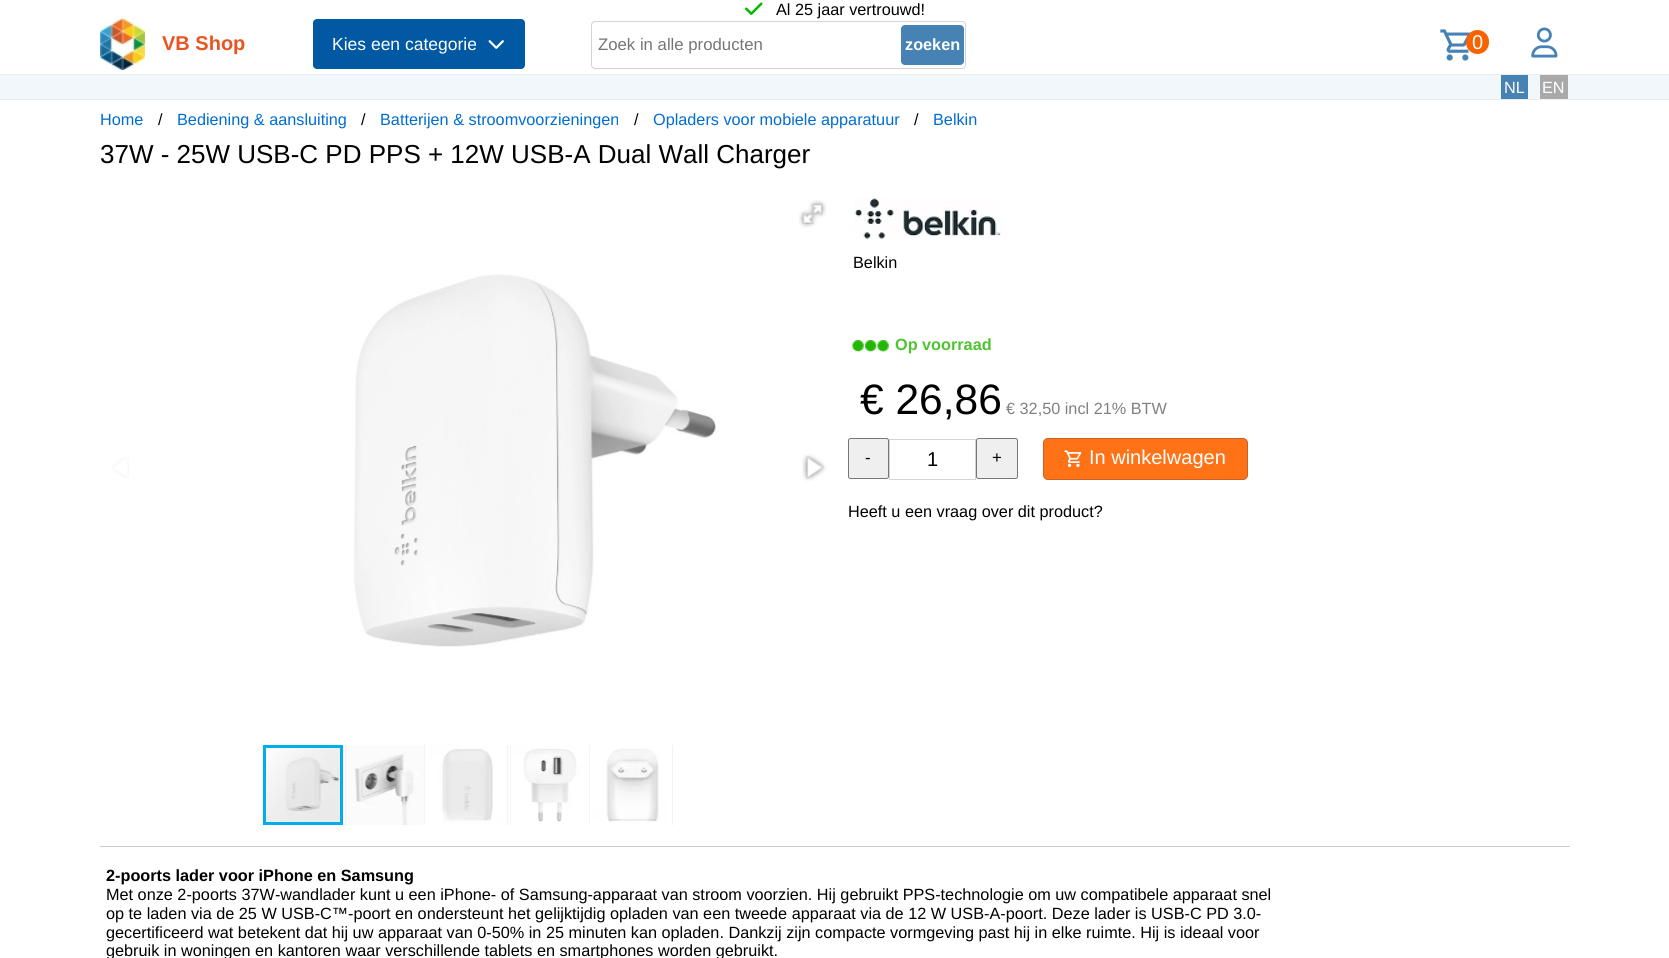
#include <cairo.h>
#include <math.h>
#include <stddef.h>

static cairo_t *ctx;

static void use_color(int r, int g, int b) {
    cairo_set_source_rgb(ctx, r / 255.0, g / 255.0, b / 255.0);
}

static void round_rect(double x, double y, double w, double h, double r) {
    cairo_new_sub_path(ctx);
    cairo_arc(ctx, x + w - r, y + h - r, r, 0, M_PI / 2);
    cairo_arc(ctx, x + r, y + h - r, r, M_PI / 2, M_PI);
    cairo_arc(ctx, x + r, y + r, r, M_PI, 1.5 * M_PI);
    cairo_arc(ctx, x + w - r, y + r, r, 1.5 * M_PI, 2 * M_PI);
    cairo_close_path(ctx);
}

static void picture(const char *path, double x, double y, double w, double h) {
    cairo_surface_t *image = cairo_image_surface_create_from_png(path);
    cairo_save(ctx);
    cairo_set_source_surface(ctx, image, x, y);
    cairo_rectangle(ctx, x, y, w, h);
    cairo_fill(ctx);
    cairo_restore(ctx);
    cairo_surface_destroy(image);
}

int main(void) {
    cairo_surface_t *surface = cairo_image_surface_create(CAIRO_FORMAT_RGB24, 1669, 958);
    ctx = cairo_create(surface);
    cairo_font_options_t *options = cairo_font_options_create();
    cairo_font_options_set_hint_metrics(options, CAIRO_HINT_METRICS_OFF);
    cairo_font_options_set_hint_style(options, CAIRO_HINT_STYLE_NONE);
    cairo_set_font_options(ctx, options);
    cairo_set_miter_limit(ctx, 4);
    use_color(255, 255, 255);
    cairo_paint(ctx);
    use_color(238, 237, 237);
    cairo_rectangle(ctx, 0, 99, 1669, 1);
    cairo_fill(ctx);
    picture("img1.png", 745, 2, 18, 13);
    cairo_select_font_face(ctx, "Liberation Sans", CAIRO_FONT_SLANT_NORMAL, CAIRO_FONT_WEIGHT_NORMAL);
    cairo_set_font_size(ctx, 16.25);
    use_color(0, 0, 0);
    cairo_move_to(ctx, 776, 15);
    cairo_show_text(ctx, "Al 25 jaar vertrouwd!");
    use_color(238, 237, 237);
    cairo_rectangle(ctx, 0, 74, 1669, 1);
    cairo_fill(ctx);
    picture("img2.png", 100, 18, 45, 52);
    cairo_select_font_face(ctx, "Liberation Sans", CAIRO_FONT_SLANT_NORMAL, CAIRO_FONT_WEIGHT_BOLD);
    cairo_set_font_size(ctx, 20);
    use_color(233, 84, 32);
    cairo_move_to(ctx, 162, 50);
    cairo_show_text(ctx, "VB Shop");
    use_color(0, 89, 162);
    round_rect(313, 19, 212, 50, 4);
    cairo_fill(ctx);
    cairo_select_font_face(ctx, "Liberation Sans", CAIRO_FONT_SLANT_NORMAL, CAIRO_FONT_WEIGHT_NORMAL);
    cairo_set_font_size(ctx, 17.5);
    use_color(255, 255, 255);
    cairo_move_to(ctx, 332, 50);
    cairo_show_text(ctx, "Kies een categorie");
    picture("img3.png", 488, 40, 16, 9);
    round_rect(591.5, 21.5, 374, 47, 3.5);
    use_color(211, 211, 211);
    cairo_set_line_width(ctx, 1);
    cairo_stroke(ctx);
    cairo_set_font_size(ctx, 16.75);
    use_color(117, 117, 117);
    cairo_move_to(ctx, 598, 50);
    cairo_show_text(ctx, "Zoek in alle producten");
    use_color(70, 130, 180);
    round_rect(901, 25, 63, 40, 4);
    cairo_fill(ctx);
    cairo_select_font_face(ctx, "Liberation Sans", CAIRO_FONT_SLANT_NORMAL, CAIRO_FONT_WEIGHT_BOLD);
    cairo_set_font_size(ctx, 16.25);
    use_color(255, 255, 255);
    cairo_move_to(ctx, 905, 50);
    cairo_show_text(ctx, "zoeken");
    picture("img4.png", 1440, 29, 31, 32);
    use_color(248, 98, 0);
    round_rect(1466, 30, 23, 24, 11.5);
    cairo_fill(ctx);
    cairo_select_font_face(ctx, "Liberation Sans", CAIRO_FONT_SLANT_NORMAL, CAIRO_FONT_WEIGHT_NORMAL);
    cairo_set_font_size(ctx, 20);
    use_color(255, 255, 255);
    cairo_move_to(ctx, 1472, 49);
    cairo_show_text(ctx, "0");
    picture("img5.png", 1531, 27, 27, 31);
    use_color(242, 247, 252);
    cairo_rectangle(ctx, 0, 75, 1669, 24);
    cairo_fill(ctx);
    use_color(70, 130, 180);
    cairo_rectangle(ctx, 1501, 75, 27, 24);
    cairo_fill(ctx);
    cairo_set_font_size(ctx, 16.25);
    use_color(255, 255, 255);
    cairo_move_to(ctx, 1504, 93);
    cairo_show_text(ctx, "NL");
    use_color(169, 169, 169);
    cairo_rectangle(ctx, 1540, 75, 28, 24);
    cairo_fill(ctx);
    use_color(255, 255, 255);
    cairo_move_to(ctx, 1542, 93);
    cairo_show_text(ctx, "EN");
    use_color(0, 109, 211);
    cairo_move_to(ctx, 100, 125);
    cairo_show_text(ctx, "Home");
    use_color(0, 0, 0);
    cairo_move_to(ctx, 158, 125);
    cairo_show_text(ctx, "/");
    use_color(0, 109, 211);
    cairo_move_to(ctx, 177, 125);
    cairo_show_text(ctx, "Bediening & aansluiting");
    use_color(0, 0, 0);
    cairo_move_to(ctx, 361, 125);
    cairo_show_text(ctx, "/");
    use_color(0, 109, 211);
    cairo_move_to(ctx, 380, 125);
    cairo_show_text(ctx, "Batterijen & stroomvoorzieningen");
    use_color(0, 0, 0);
    cairo_move_to(ctx, 634, 125);
    cairo_show_text(ctx, "/");
    use_color(0, 109, 211);
    cairo_move_to(ctx, 653, 125);
    cairo_show_text(ctx, "Opladers voor mobiele apparatuur");
    use_color(0, 0, 0);
    cairo_move_to(ctx, 914, 125);
    cairo_show_text(ctx, "/");
    use_color(0, 109, 211);
    cairo_move_to(ctx, 933, 125);
    cairo_show_text(ctx, "Belkin");
    cairo_set_font_size(ctx, 26);
    use_color(0, 0, 0);
    cairo_move_to(ctx, 100, 163);
    cairo_show_text(ctx, "37W - 25W USB-C PD PPS + 12W USB-A Dual Wall Charger");
    picture("img6.png", 799, 200, 27, 28);
    picture("img7.png", 112, 457, 17, 21);
    picture("img8.png", 354, 274, 362, 373);
    picture("img9.png", 802, 454, 24, 27);
    picture("img14.png", 266, 748, 74, 74);
    cairo_rectangle(ctx, 264.5, 746.5, 77, 77);
    use_color(0, 175, 234);
    cairo_set_line_width(ctx, 3);
    cairo_stroke(ctx);
    use_color(229, 229, 229);
    cairo_rectangle(ctx, 345, 745, 80, 80);
    cairo_fill(ctx);
    picture("img10.png", 345, 745, 80, 80);
    cairo_rectangle(ctx, 507, 745, 1, 80);
    cairo_fill(ctx);
    picture("img11.png", 428, 745, 80, 80);
    cairo_rectangle(ctx, 510, 745, 80, 80);
    cairo_fill(ctx);
    picture("img12.png", 510, 745, 80, 80);
    cairo_rectangle(ctx, 672, 745, 1, 80);
    cairo_fill(ctx);
    picture("img13.png", 593, 745, 80, 80);
    picture("img15.png", 854, 198, 147, 41);
    cairo_set_font_size(ctx, 16.25);
    use_color(0, 0, 0);
    cairo_move_to(ctx, 853, 268);
    cairo_show_text(ctx, "Belkin");
    picture("img16.png", 852, 340, 37, 12);
    cairo_select_font_face(ctx, "Liberation Sans", CAIRO_FONT_SLANT_NORMAL, CAIRO_FONT_WEIGHT_BOLD);
    use_color(79, 196, 49);
    cairo_move_to(ctx, 895, 350);
    cairo_show_text(ctx, "Op voorraad");
    cairo_select_font_face(ctx, "Liberation Sans", CAIRO_FONT_SLANT_NORMAL, CAIRO_FONT_WEIGHT_NORMAL);
    cairo_set_font_size(ctx, 42.5);
    use_color(0, 0, 0);
    cairo_move_to(ctx, 860, 414);
    cairo_show_text(ctx, "€ 26,86");
    cairo_set_font_size(ctx, 16.25);
    use_color(128, 128, 128);
    cairo_move_to(ctx, 1006, 414);
    cairo_show_text(ctx, "€ 32,50 incl 21% BTW");
    use_color(239, 239, 239);
    round_rect(848.5, 438.5, 40, 40, 2);
    cairo_fill_preserve(ctx);
    use_color(118, 118, 118);
    cairo_set_line_width(ctx, 1);
    cairo_stroke(ctx);
    cairo_set_font_size(ctx, 16.75);
    use_color(0, 0, 0);
    cairo_move_to(ctx, 865, 463);
    cairo_show_text(ctx, "-");
    cairo_rectangle(ctx, 889.5, 439.5, 86, 40);
    use_color(211, 211, 211);
    cairo_stroke(ctx);
    cairo_set_font_size(ctx, 20);
    use_color(0, 0, 0);
    cairo_move_to(ctx, 927, 466);
    cairo_show_text(ctx, "1");
    use_color(239, 239, 239);
    round_rect(976.5, 438.5, 41, 40, 2);
    cairo_fill_preserve(ctx);
    use_color(118, 118, 118);
    cairo_stroke(ctx);
    cairo_set_font_size(ctx, 16.75);
    use_color(0, 0, 0);
    cairo_move_to(ctx, 992, 463);
    cairo_show_text(ctx, "+");
    use_color(255, 114, 22);
    round_rect(1043.5, 438.5, 204, 41, 4.5);
    cairo_fill_preserve(ctx);
    use_color(200, 98, 40);
    cairo_stroke(ctx);
    picture("img17.png", 1064, 450, 18, 18);
    cairo_set_font_size(ctx, 20);
    use_color(255, 255, 255);
    cairo_move_to(ctx, 1089, 464);
    cairo_show_text(ctx, "In winkelwagen");
    cairo_set_font_size(ctx, 16.25);
    use_color(0, 0, 0);
    cairo_move_to(ctx, 848, 517);
    cairo_show_text(ctx, "Heeft u een vraag over dit product?");
    use_color(204, 204, 204);
    cairo_rectangle(ctx, 100, 846, 1470, 1);
    cairo_fill(ctx);
    cairo_select_font_face(ctx, "Liberation Sans", CAIRO_FONT_SLANT_NORMAL, CAIRO_FONT_WEIGHT_BOLD);
    use_color(0, 0, 0);
    cairo_move_to(ctx, 106, 881);
    cairo_show_text(ctx, "2-poorts lader voor iPhone en Samsung");
    cairo_select_font_face(ctx, "Liberation Sans", CAIRO_FONT_SLANT_NORMAL, CAIRO_FONT_WEIGHT_NORMAL);
    cairo_move_to(ctx, 106, 900);
    cairo_show_text(ctx, "Met onze 2-poorts 37W-wandlader kunt u een iPhone- of Samsung-apparaat van stroom voorzien. Hij gebruikt PPS-technologie om uw compatibele apparaat snel");
    cairo_move_to(ctx, 106, 919);
    cairo_show_text(ctx, "op te laden via de 25 W USB-C™-poort en ondersteunt het gelijktijdig opladen van een tweede apparaat via de 12 W USB-A-poort. Deze lader is USB-C PD 3.0-");
    cairo_move_to(ctx, 106, 938);
    cairo_show_text(ctx, "gecertificeerd wat betekent dat hij uw apparaat van 0-50% in 25 minuten kan opladen. Dankzij zijn compacte vormgeving past hij in elke ruimte. Hij is ideaal voor");
    cairo_move_to(ctx, 106, 956);
    cairo_show_text(ctx, "gebruik in woningen en kantoren waar verschillende tablets en smartphones worden gebruikt.");
    cairo_surface_write_to_png(surface, "result.png");
    cairo_font_options_destroy(options);
    cairo_destroy(ctx);
    cairo_surface_destroy(surface);
    return 0;
}
